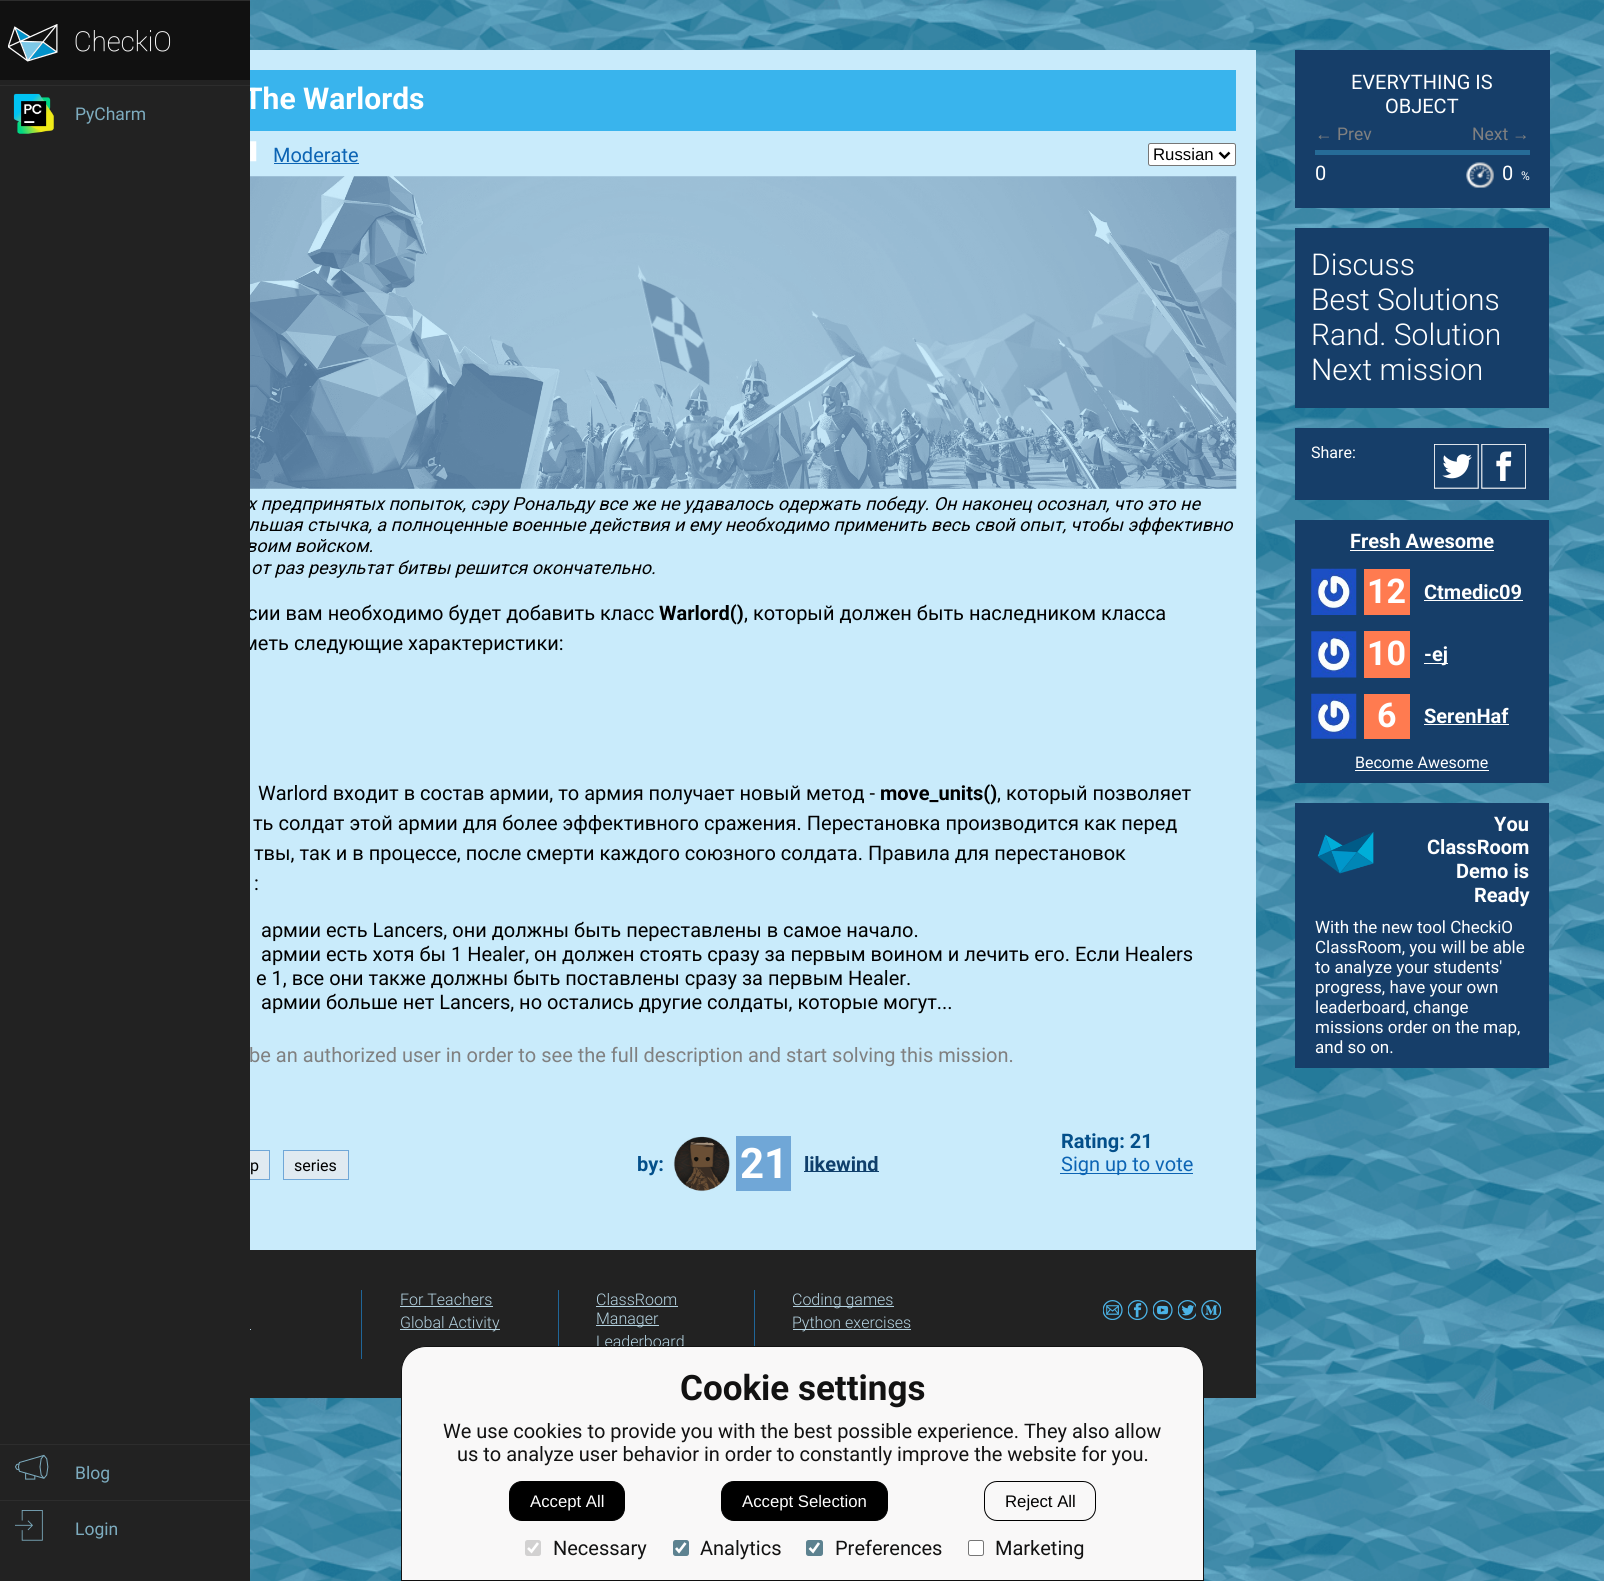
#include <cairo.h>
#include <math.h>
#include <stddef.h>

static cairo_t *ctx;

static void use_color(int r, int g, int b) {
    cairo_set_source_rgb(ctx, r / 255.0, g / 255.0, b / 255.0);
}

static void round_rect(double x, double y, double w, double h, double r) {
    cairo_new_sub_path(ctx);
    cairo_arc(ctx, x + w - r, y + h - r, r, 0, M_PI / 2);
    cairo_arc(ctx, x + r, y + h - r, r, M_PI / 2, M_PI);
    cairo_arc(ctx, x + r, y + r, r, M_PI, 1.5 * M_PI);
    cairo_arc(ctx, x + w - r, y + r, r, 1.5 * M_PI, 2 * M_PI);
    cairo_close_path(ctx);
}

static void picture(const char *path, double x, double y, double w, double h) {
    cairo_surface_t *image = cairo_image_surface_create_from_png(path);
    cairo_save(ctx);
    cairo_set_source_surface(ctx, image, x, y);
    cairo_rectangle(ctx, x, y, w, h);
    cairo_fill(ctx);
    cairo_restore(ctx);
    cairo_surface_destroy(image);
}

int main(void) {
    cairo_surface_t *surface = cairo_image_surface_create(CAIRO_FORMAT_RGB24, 1604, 1581);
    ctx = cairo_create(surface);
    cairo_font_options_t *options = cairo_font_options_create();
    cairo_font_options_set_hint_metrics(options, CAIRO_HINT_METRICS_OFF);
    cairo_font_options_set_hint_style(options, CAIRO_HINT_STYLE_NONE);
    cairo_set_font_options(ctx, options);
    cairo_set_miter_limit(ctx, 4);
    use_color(255, 255, 255);
    cairo_paint(ctx);
    picture("img1.png", 250, 0, 1354, 1581);
    use_color(201, 235, 251);
    cairo_rectangle(ctx, 250, 50, 1006, 1200);
    cairo_fill(ctx);
    use_color(57, 180, 237);
    cairo_rectangle(ctx, 250, 70, 986, 61);
    cairo_fill(ctx);
    cairo_select_font_face(ctx, "Roboto", CAIRO_FONT_SLANT_NORMAL, CAIRO_FONT_WEIGHT_BOLD);
    cairo_set_font_size(ctx, 30);
    use_color(255, 255, 255);
    cairo_move_to(ctx, 244, 109);
    cairo_show_text(ctx, "The Warlords");
    cairo_select_font_face(ctx, "Roboto", CAIRO_FONT_SLANT_ITALIC, CAIRO_FONT_WEIGHT_NORMAL);
    cairo_set_font_size(ctx, 18);
    use_color(0, 0, 0);
    cairo_move_to(ctx, 247, 510);
    cairo_show_text(ctx, "х предпринятых попыток, сэру Рональду все же не удавалось одержать победу. Он наконец осознал, что это не");
    cairo_move_to(ctx, 248, 531);
    cairo_show_text(ctx, "льшая стычка, а полноценные военные действия и ему необходимо применить весь свой опыт, чтобы эффективно");
    cairo_move_to(ctx, 246, 552);
    cairo_show_text(ctx, "воим войском.");
    cairo_select_font_face(ctx, "Roboto", CAIRO_FONT_SLANT_NORMAL, CAIRO_FONT_WEIGHT_NORMAL);
    cairo_set_font_size(ctx, 20);
    cairo_move_to(ctx, 247, 620);
    cairo_show_text(ctx, "сии вам необходимо будет добавить класс");
    cairo_move_to(ctx, 243, 650);
    cairo_show_text(ctx, "меть следующие характеристики:");
    use_color(224, 234, 241);
    cairo_rectangle(ctx, 250, 1151, 19, 28);
    cairo_fill(ctx);
    cairo_rectangle(ctx, 220.5, 1150.5, 49, 29);
    use_color(112, 167, 215);
    cairo_set_line_width(ctx, 1);
    cairo_stroke(ctx);
    use_color(34, 34, 34);
    cairo_rectangle(ctx, 0, 80, 250, 1501);
    cairo_fill(ctx);
    use_color(17, 17, 17);
    cairo_rectangle(ctx, 0, 1, 250, 79);
    cairo_fill(ctx);
    use_color(45, 45, 45);
    cairo_rectangle(ctx, 0, 0, 250, 1);
    cairo_fill(ctx);
    picture("img2.png", 8, 24, 50, 38);
    picture("img3.png", 75, 30, 96, 22);
    cairo_rectangle(ctx, 0, 85, 250, 1);
    cairo_fill(ctx);
    picture("img4.png", 13, 93, 41, 41);
    cairo_set_font_size(ctx, 17.5);
    use_color(125, 172, 191);
    cairo_move_to(ctx, 75, 120);
    cairo_show_text(ctx, "PyCharm");
    use_color(45, 45, 45);
    cairo_rectangle(ctx, 0, 1444, 250, 1);
    cairo_fill(ctx);
    picture("img5.png", 15, 1454, 34, 26);
    use_color(125, 172, 191);
    cairo_move_to(ctx, 75, 1479);
    cairo_show_text(ctx, "Blog");
    use_color(45, 45, 45);
    cairo_rectangle(ctx, 0, 1500, 250, 1);
    cairo_fill(ctx);
    picture("img6.png", 15, 1510, 28, 31);
    use_color(125, 172, 191);
    cairo_move_to(ctx, 75, 1535);
    cairo_show_text(ctx, "Login");
    picture("img7.png", 250, 141, 7, 21);
    cairo_set_font_size(ctx, 20);
    use_color(12, 100, 180);
    cairo_move_to(ctx, 273, 162);
    cairo_show_text(ctx, "Moderate");
    cairo_rectangle(ctx, 274, 163, 85, 1);
    cairo_fill(ctx);
    use_color(255, 255, 255);
    round_rect(1148.5, 143.5, 87, 22, 2);
    cairo_fill_preserve(ctx);
    use_color(118, 118, 118);
    cairo_stroke(ctx);
    cairo_new_path(ctx);
    cairo_move_to(ctx, 1219.5, 152.5);
    cairo_line_to(ctx, 1224.5, 157.5);
    cairo_line_to(ctx, 1229.5, 152.5);
    use_color(0, 0, 0);
    cairo_set_line_width(ctx, 2.5);
    cairo_stroke(ctx);
    cairo_select_font_face(ctx, "Liberation Sans", CAIRO_FONT_SLANT_NORMAL, CAIRO_FONT_WEIGHT_NORMAL);
    cairo_set_font_size(ctx, 16.75);
    cairo_move_to(ctx, 1153, 160);
    cairo_show_text(ctx, "Russian");
    picture("img8.png", 250, 176, 987, 313);
    cairo_select_font_face(ctx, "Roboto", CAIRO_FONT_SLANT_ITALIC, CAIRO_FONT_WEIGHT_NORMAL);
    cairo_set_font_size(ctx, 18);
    cairo_move_to(ctx, 251, 574);
    cairo_show_text(ctx, "от раз результат битвы решится окончательно.");
    cairo_select_font_face(ctx, "Roboto", CAIRO_FONT_SLANT_NORMAL, CAIRO_FONT_WEIGHT_BOLD);
    cairo_set_font_size(ctx, 20);
    cairo_move_to(ctx, 659, 620);
    cairo_show_text(ctx, "Warlord()");
    cairo_select_font_face(ctx, "Roboto", CAIRO_FONT_SLANT_NORMAL, CAIRO_FONT_WEIGHT_NORMAL);
    cairo_move_to(ctx, 744, 620);
    cairo_show_text(ctx, ", который должен быть наследником класса");
    cairo_move_to(ctx, 258, 800);
    cairo_show_text(ctx, "Warlord входит в состав армии, то армия получает новый метод -");
    cairo_select_font_face(ctx, "Roboto", CAIRO_FONT_SLANT_NORMAL, CAIRO_FONT_WEIGHT_BOLD);
    cairo_move_to(ctx, 880, 800);
    cairo_show_text(ctx, "move_units()");
    cairo_select_font_face(ctx, "Roboto", CAIRO_FONT_SLANT_NORMAL, CAIRO_FONT_WEIGHT_NORMAL);
    cairo_move_to(ctx, 997, 800);
    cairo_show_text(ctx, ", который позволяет");
    cairo_move_to(ctx, 253, 830);
    cairo_show_text(ctx, "ть солдат этой армии для более эффективного сражения. Перестановка производится как перед");
    cairo_move_to(ctx, 254, 860);
    cairo_show_text(ctx, "твы, так и в процессе, после смерти каждого союзного солдата. Правила для перестановок");
    cairo_move_to(ctx, 254, 890);
    cairo_show_text(ctx, ":");
    cairo_move_to(ctx, 261, 937);
    cairo_show_text(ctx, "армии есть Lancers, они должны быть переставлены в самое начало.");
    cairo_move_to(ctx, 261, 961);
    cairo_show_text(ctx, "армии есть хотя бы 1 Healer, он должен стоять сразу за первым воином и лечить его. Если Healers");
    cairo_move_to(ctx, 256, 985);
    cairo_show_text(ctx, "е 1, все они также должны быть поставлены сразу за первым Healer.");
    cairo_move_to(ctx, 261, 1009);
    cairo_show_text(ctx, "армии больше нет Lancers, но остались другие солдаты, которые могут...");
    use_color(128, 128, 128);
    cairo_move_to(ctx, 249, 1062);
    cairo_show_text(ctx, "be an authorized user in order to see the full description and start solving this mission.");
    cairo_set_font_size(ctx, 16);
    use_color(0, 0, 0);
    cairo_move_to(ctx, 250, 1171);
    cairo_show_text(ctx, "p");
    use_color(224, 234, 241);
    cairo_rectangle(ctx, 283.5, 1150.5, 65, 29);
    cairo_fill_preserve(ctx);
    use_color(112, 167, 215);
    cairo_set_line_width(ctx, 1);
    cairo_stroke(ctx);
    use_color(0, 0, 0);
    cairo_move_to(ctx, 294, 1171);
    cairo_show_text(ctx, "series");
    cairo_select_font_face(ctx, "Roboto", CAIRO_FONT_SLANT_NORMAL, CAIRO_FONT_WEIGHT_BOLD);
    cairo_set_font_size(ctx, 20);
    use_color(3, 79, 138);
    cairo_move_to(ctx, 637, 1171);
    cairo_show_text(ctx, "by:");
    picture("img9.png", 673, 1136, 57, 56);
    use_color(112, 167, 215);
    cairo_rectangle(ctx, 736, 1136, 55, 55);
    cairo_fill(ctx);
    cairo_set_font_size(ctx, 42);
    use_color(255, 255, 255);
    cairo_move_to(ctx, 740, 1178);
    cairo_show_text(ctx, "21");
    use_color(15, 63, 107);
    cairo_rectangle(ctx, 804, 1171, 75, 1);
    cairo_fill(ctx);
    cairo_set_font_size(ctx, 20);
    cairo_move_to(ctx, 804, 1171);
    cairo_show_text(ctx, "likewind");
    use_color(3, 79, 138);
    cairo_move_to(ctx, 1061, 1148);
    cairo_show_text(ctx, "Rating: 21");
    use_color(12, 100, 180);
    cairo_rectangle(ctx, 1060, 1173, 133, 1);
    cairo_fill(ctx);
    cairo_select_font_face(ctx, "Roboto", CAIRO_FONT_SLANT_NORMAL, CAIRO_FONT_WEIGHT_NORMAL);
    cairo_move_to(ctx, 1061, 1171);
    cairo_show_text(ctx, "Sign up to vote");
    use_color(22, 62, 105);
    cairo_rectangle(ctx, 1295, 50, 255, 158);
    cairo_fill(ctx);
    use_color(255, 255, 255);
    cairo_move_to(ctx, 1351, 89);
    cairo_show_text(ctx, "EVERYTHING IS");
    cairo_move_to(ctx, 1385, 113);
    cairo_show_text(ctx, "OBJECT");
    cairo_select_font_face(ctx, "Liberation Sans", CAIRO_FONT_SLANT_NORMAL, CAIRO_FONT_WEIGHT_NORMAL);
    cairo_set_font_size(ctx, 17.5);
    use_color(128, 128, 128);
    cairo_move_to(ctx, 1315, 140);
    cairo_show_text(ctx, "←");
    cairo_select_font_face(ctx, "Roboto", CAIRO_FONT_SLANT_NORMAL, CAIRO_FONT_WEIGHT_NORMAL);
    cairo_move_to(ctx, 1337, 140);
    cairo_show_text(ctx, "Prev");
    cairo_move_to(ctx, 1472, 140);
    cairo_show_text(ctx, "Next");
    cairo_select_font_face(ctx, "Liberation Sans", CAIRO_FONT_SLANT_NORMAL, CAIRO_FONT_WEIGHT_NORMAL);
    cairo_move_to(ctx, 1512, 140);
    cairo_show_text(ctx, "→");
    use_color(38, 107, 151);
    cairo_rectangle(ctx, 1315, 150, 215, 5);
    cairo_fill(ctx);
    cairo_select_font_face(ctx, "Roboto", CAIRO_FONT_SLANT_NORMAL, CAIRO_FONT_WEIGHT_NORMAL);
    cairo_set_font_size(ctx, 20);
    use_color(255, 255, 255);
    cairo_move_to(ctx, 1315, 180);
    cairo_show_text(ctx, "0");
    picture("img10.png", 1466, 162, 28, 26);
    cairo_move_to(ctx, 1502, 180);
    cairo_show_text(ctx, "0");
    cairo_set_font_size(ctx, 12);
    cairo_move_to(ctx, 1521, 180);
    cairo_show_text(ctx, "%");
    use_color(22, 62, 105);
    cairo_rectangle(ctx, 1295, 228, 254, 180);
    cairo_fill(ctx);
    cairo_select_font_face(ctx, "Roboto Light", CAIRO_FONT_SLANT_NORMAL, CAIRO_FONT_WEIGHT_NORMAL);
    cairo_set_font_size(ctx, 30);
    use_color(255, 255, 255);
    cairo_move_to(ctx, 1311, 275);
    cairo_show_text(ctx, "Discuss");
    cairo_move_to(ctx, 1311, 310);
    cairo_show_text(ctx, "Best Solutions");
    cairo_move_to(ctx, 1311, 345);
    cairo_show_text(ctx, "Rand. Solution");
    cairo_move_to(ctx, 1311, 380);
    cairo_show_text(ctx, "Next mission");
    use_color(22, 62, 105);
    cairo_rectangle(ctx, 1295, 428, 254, 72);
    cairo_fill(ctx);
    cairo_select_font_face(ctx, "Roboto", CAIRO_FONT_SLANT_NORMAL, CAIRO_FONT_WEIGHT_NORMAL);
    cairo_set_font_size(ctx, 16);
    use_color(255, 255, 255);
    cairo_move_to(ctx, 1311, 458);
    cairo_show_text(ctx, "Share:");
    picture("img11.png", 1434, 444, 45, 45);
    picture("img12.png", 1481, 444, 45, 45);
    use_color(22, 62, 105);
    cairo_rectangle(ctx, 1295, 520, 254, 263);
    cairo_fill(ctx);
    cairo_select_font_face(ctx, "Roboto", CAIRO_FONT_SLANT_NORMAL, CAIRO_FONT_WEIGHT_BOLD);
    cairo_set_font_size(ctx, 20);
    use_color(255, 255, 255);
    cairo_move_to(ctx, 1350, 548);
    cairo_show_text(ctx, "Fresh Awesome");
    cairo_rectangle(ctx, 1350, 550, 144, 1);
    cairo_fill(ctx);
    picture("img13.png", 1311, 568, 46, 47);
    use_color(255, 123, 80);
    cairo_rectangle(ctx, 1364, 569, 46, 46);
    cairo_fill(ctx);
    cairo_set_font_size(ctx, 34);
    use_color(255, 255, 255);
    cairo_move_to(ctx, 1367, 603);
    cairo_show_text(ctx, "12");
    cairo_set_font_size(ctx, 20);
    cairo_move_to(ctx, 1424, 599);
    cairo_show_text(ctx, "Ctmedic09");
    cairo_rectangle(ctx, 1424, 600, 99, 1);
    cairo_fill(ctx);
    picture("img14.png", 1311, 631, 46, 47);
    use_color(255, 123, 80);
    cairo_rectangle(ctx, 1364, 631, 46, 47);
    cairo_fill(ctx);
    cairo_set_font_size(ctx, 34);
    use_color(255, 255, 255);
    cairo_move_to(ctx, 1367, 665);
    cairo_show_text(ctx, "10");
    cairo_rectangle(ctx, 1424, 663, 24, 1);
    cairo_fill(ctx);
    cairo_set_font_size(ctx, 20);
    cairo_move_to(ctx, 1424, 661);
    cairo_show_text(ctx, "-ej");
    picture("img15.png", 1311, 693, 46, 46);
    use_color(255, 123, 80);
    cairo_rectangle(ctx, 1364, 694, 46, 45);
    cairo_fill(ctx);
    cairo_set_font_size(ctx, 34);
    use_color(255, 255, 255);
    cairo_move_to(ctx, 1377, 727);
    cairo_show_text(ctx, "6");
    cairo_set_font_size(ctx, 20);
    cairo_move_to(ctx, 1424, 723);
    cairo_show_text(ctx, "SerenHaf");
    cairo_rectangle(ctx, 1424, 724, 85, 1);
    cairo_fill(ctx);
    cairo_select_font_face(ctx, "Roboto", CAIRO_FONT_SLANT_NORMAL, CAIRO_FONT_WEIGHT_NORMAL);
    cairo_set_font_size(ctx, 16);
    cairo_move_to(ctx, 1355, 768);
    cairo_show_text(ctx, "Become Awesome");
    cairo_rectangle(ctx, 1355, 770, 134, 1);
    cairo_fill(ctx);
    use_color(22, 62, 105);
    cairo_rectangle(ctx, 1295, 803, 254, 265);
    cairo_fill(ctx);
    picture("img16.png", 1317, 832, 57, 42);
    cairo_select_font_face(ctx, "Roboto", CAIRO_FONT_SLANT_NORMAL, CAIRO_FONT_WEIGHT_BOLD);
    cairo_set_font_size(ctx, 20);
    use_color(255, 255, 255);
    cairo_move_to(ctx, 1494, 831);
    cairo_show_text(ctx, "You");
    cairo_move_to(ctx, 1427, 854);
    cairo_show_text(ctx, "ClassRoom");
    cairo_move_to(ctx, 1456, 878);
    cairo_show_text(ctx, "Demo is");
    cairo_move_to(ctx, 1474, 902);
    cairo_show_text(ctx, "Ready");
    cairo_select_font_face(ctx, "Roboto", CAIRO_FONT_SLANT_NORMAL, CAIRO_FONT_WEIGHT_NORMAL);
    cairo_set_font_size(ctx, 17);
    cairo_move_to(ctx, 1315, 933);
    cairo_show_text(ctx, "With the new tool CheckiO");
    cairo_move_to(ctx, 1315, 953);
    cairo_show_text(ctx, "ClassRoom, you will be able");
    cairo_move_to(ctx, 1315, 973);
    cairo_show_text(ctx, "to analyze your students'");
    cairo_move_to(ctx, 1315, 993);
    cairo_show_text(ctx, "progress, have your own");
    cairo_move_to(ctx, 1315, 1013);
    cairo_show_text(ctx, "leaderboard, change");
    cairo_move_to(ctx, 1315, 1033);
    cairo_show_text(ctx, "missions order on the map,");
    cairo_move_to(ctx, 1315, 1053);
    cairo_show_text(ctx, "and so on.");
    use_color(34, 34, 34);
    cairo_rectangle(ctx, 250, 1250, 1006, 148);
    cairo_fill(ctx);
    use_color(32, 102, 153);
    cairo_rectangle(ctx, 361, 1290, 1, 69);
    cairo_fill(ctx);
    use_color(180, 210, 224);
    cairo_rectangle(ctx, 250, 1329, 1, 1);
    cairo_fill(ctx);
    use_color(32, 102, 153);
    cairo_rectangle(ctx, 558, 1290, 1, 56);
    cairo_fill(ctx);
    cairo_select_font_face(ctx, "Roboto Light", CAIRO_FONT_SLANT_NORMAL, CAIRO_FONT_WEIGHT_NORMAL);
    cairo_set_font_size(ctx, 16);
    use_color(180, 210, 224);
    cairo_move_to(ctx, 400, 1305);
    cairo_show_text(ctx, "For Teachers");
    cairo_rectangle(ctx, 400, 1306, 93, 1);
    cairo_fill(ctx);
    cairo_rectangle(ctx, 400, 1329, 100, 1);
    cairo_fill(ctx);
    cairo_move_to(ctx, 400, 1328);
    cairo_show_text(ctx, "Global Activity");
    use_color(32, 102, 153);
    cairo_rectangle(ctx, 754, 1290, 1, 56);
    cairo_fill(ctx);
    use_color(180, 210, 224);
    cairo_move_to(ctx, 596, 1305);
    cairo_show_text(ctx, "ClassRoom");
    cairo_rectangle(ctx, 596, 1306, 82, 1);
    cairo_fill(ctx);
    cairo_rectangle(ctx, 596, 1325, 63, 1);
    cairo_fill(ctx);
    cairo_move_to(ctx, 596, 1324);
    cairo_show_text(ctx, "Manager");
    cairo_move_to(ctx, 596, 1347);
    cairo_show_text(ctx, "Leaderboard");
    cairo_rectangle(ctx, 793, 1306, 101, 1);
    cairo_fill(ctx);
    cairo_move_to(ctx, 792, 1305);
    cairo_show_text(ctx, "Coding games");
    cairo_rectangle(ctx, 793, 1329, 118, 1);
    cairo_fill(ctx);
    cairo_move_to(ctx, 792, 1328);
    cairo_show_text(ctx, "Python exercises");
    picture("img17.png", 1103, 1300, 20, 20);
    picture("img18.png", 1128, 1300, 20, 20);
    picture("img19.png", 1153, 1300, 20, 20);
    picture("img20.png", 1178, 1300, 18, 20);
    picture("img21.png", 1201, 1300, 20, 20);
    use_color(249, 248, 248);
    cairo_new_path(ctx);
    cairo_move_to(ctx, 426, 1346.5);
    cairo_line_to(ctx, 1179, 1346.5);
    cairo_curve_to(ctx, 1192.5, 1346.5, 1203.5, 1357.5, 1203.5, 1371);
    cairo_line_to(ctx, 1203.5, 1580.5);
    cairo_line_to(ctx, 401.5, 1580.5);
    cairo_line_to(ctx, 401.5, 1371);
    cairo_curve_to(ctx, 401.5, 1357.5, 412.5, 1346.5, 426, 1346.5);
    cairo_close_path(ctx);
    cairo_fill_preserve(ctx);
    use_color(18, 18, 18);
    cairo_stroke(ctx);
    cairo_select_font_face(ctx, "Roboto", CAIRO_FONT_SLANT_NORMAL, CAIRO_FONT_WEIGHT_BOLD);
    cairo_set_font_size(ctx, 35);
    cairo_move_to(ctx, 680, 1400);
    cairo_show_text(ctx, "Cookie settings");
    cairo_select_font_face(ctx, "Roboto", CAIRO_FONT_SLANT_NORMAL, CAIRO_FONT_WEIGHT_NORMAL);
    cairo_set_font_size(ctx, 20);
    cairo_move_to(ctx, 443, 1438);
    cairo_show_text(ctx, "We use cookies to provide you with the best possible experience. They also allow");
    cairo_move_to(ctx, 457, 1461);
    cairo_show_text(ctx, "us to analyze user behavior in order to constantly improve the website for you.");
    use_color(0, 0, 0);
    round_rect(509.5, 1481.5, 115, 39, 12.5);
    cairo_fill_preserve(ctx);
    cairo_stroke(ctx);
    cairo_select_font_face(ctx, "Liberation Sans", CAIRO_FONT_SLANT_NORMAL, CAIRO_FONT_WEIGHT_NORMAL);
    cairo_set_font_size(ctx, 16.75);
    use_color(255, 255, 255);
    cairo_move_to(ctx, 530, 1507);
    cairo_show_text(ctx, "Accept All");
    use_color(0, 0, 0);
    round_rect(721.5, 1481.5, 166, 39, 12.5);
    cairo_fill_preserve(ctx);
    cairo_stroke(ctx);
    use_color(255, 255, 255);
    cairo_move_to(ctx, 742, 1507);
    cairo_show_text(ctx, "Accept Selection");
    round_rect(984.5, 1481.5, 111, 39, 12.5);
    use_color(0, 0, 0);
    cairo_stroke(ctx);
    cairo_move_to(ctx, 1005, 1507);
    cairo_show_text(ctx, "Reject All");
    use_color(210, 209, 209);
    round_rect(525, 1540, 16, 16, 2.5);
    cairo_fill(ctx);
    cairo_new_path(ctx);
    cairo_move_to(ctx, 528, 1548);
    cairo_line_to(ctx, 531.5, 1551.5);
    cairo_line_to(ctx, 538, 1543);
    use_color(255, 255, 255);
    cairo_set_line_width(ctx, 2.6);
    cairo_stroke(ctx);
    cairo_select_font_face(ctx, "Roboto", CAIRO_FONT_SLANT_NORMAL, CAIRO_FONT_WEIGHT_NORMAL);
    cairo_set_font_size(ctx, 20);
    use_color(18, 18, 18);
    cairo_move_to(ctx, 553, 1555);
    cairo_show_text(ctx, "Necessary");
    use_color(93, 130, 144);
    round_rect(673, 1540, 16, 16, 2.5);
    cairo_fill(ctx);
    cairo_new_path(ctx);
    cairo_move_to(ctx, 676, 1548);
    cairo_line_to(ctx, 679, 1551.5);
    cairo_line_to(ctx, 685.5, 1543);
    use_color(255, 255, 255);
    cairo_stroke(ctx);
    use_color(18, 18, 18);
    cairo_move_to(ctx, 700, 1555);
    cairo_show_text(ctx, "Analytics");
    use_color(93, 130, 144);
    round_rect(806, 1540, 17, 16, 2.5);
    cairo_fill(ctx);
    cairo_new_path(ctx);
    cairo_move_to(ctx, 809.5, 1548);
    cairo_line_to(ctx, 813, 1551.5);
    cairo_line_to(ctx, 819, 1543);
    use_color(255, 255, 255);
    cairo_stroke(ctx);
    use_color(18, 18, 18);
    cairo_move_to(ctx, 835, 1555);
    cairo_show_text(ctx, "Preferences");
    use_color(255, 255, 255);
    round_rect(968.5, 1540.5, 15, 15, 2);
    cairo_fill_preserve(ctx);
    use_color(118, 118, 118);
    cairo_set_line_width(ctx, 1);
    cairo_stroke(ctx);
    use_color(18, 18, 18);
    cairo_move_to(ctx, 995, 1555);
    cairo_show_text(ctx, "Marketing");
    cairo_surface_write_to_png(surface, "result.png");
    cairo_font_options_destroy(options);
    cairo_destroy(ctx);
    cairo_surface_destroy(surface);
    return 0;
}
